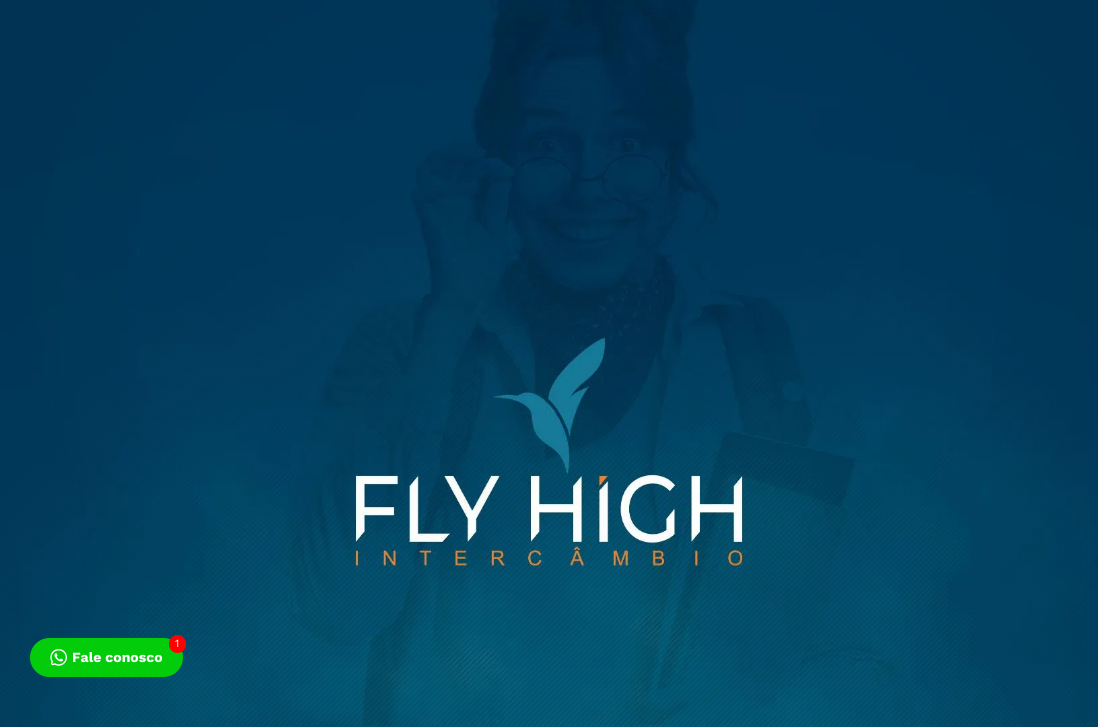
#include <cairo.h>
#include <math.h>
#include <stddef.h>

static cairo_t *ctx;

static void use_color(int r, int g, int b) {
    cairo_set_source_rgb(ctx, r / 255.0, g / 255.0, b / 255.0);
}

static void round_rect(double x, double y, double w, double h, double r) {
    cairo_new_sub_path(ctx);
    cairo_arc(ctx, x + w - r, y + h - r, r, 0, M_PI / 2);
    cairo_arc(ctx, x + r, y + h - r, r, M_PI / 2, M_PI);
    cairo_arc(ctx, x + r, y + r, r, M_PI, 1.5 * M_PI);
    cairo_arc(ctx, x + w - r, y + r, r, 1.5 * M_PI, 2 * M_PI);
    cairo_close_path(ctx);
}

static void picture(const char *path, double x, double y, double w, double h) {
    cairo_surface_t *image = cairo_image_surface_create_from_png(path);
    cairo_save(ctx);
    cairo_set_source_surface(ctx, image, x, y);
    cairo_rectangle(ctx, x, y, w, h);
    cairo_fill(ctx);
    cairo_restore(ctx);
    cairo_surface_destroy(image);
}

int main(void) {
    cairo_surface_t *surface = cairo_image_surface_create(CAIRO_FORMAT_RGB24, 1098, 727);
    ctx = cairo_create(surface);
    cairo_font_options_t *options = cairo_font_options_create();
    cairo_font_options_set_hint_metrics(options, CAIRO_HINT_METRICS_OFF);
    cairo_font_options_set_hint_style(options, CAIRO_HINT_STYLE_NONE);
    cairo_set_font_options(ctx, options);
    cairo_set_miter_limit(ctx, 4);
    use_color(255, 255, 255);
    cairo_paint(ctx);
    picture("img1.png", 0, 0, 1098, 727);
    use_color(3, 204, 11);
    round_rect(30, 638, 153, 39, 19.5);
    cairo_fill(ctx);
    use_color(255, 0, 0);
    round_rect(169, 635, 17, 18, 8.5);
    cairo_fill(ctx);
    cairo_select_font_face(ctx, "Work Sans", CAIRO_FONT_SLANT_NORMAL, CAIRO_FONT_WEIGHT_NORMAL);
    cairo_set_font_size(ctx, 11);
    use_color(255, 255, 255);
    cairo_move_to(ctx, 175, 647);
    cairo_show_text(ctx, "1");
    picture("img2.png", 50, 649, 17, 17);
    cairo_select_font_face(ctx, "Work Sans", CAIRO_FONT_SLANT_NORMAL, CAIRO_FONT_WEIGHT_BOLD);
    cairo_set_font_size(ctx, 14);
    cairo_move_to(ctx, 72, 662);
    cairo_show_text(ctx, "Fale conosco");
    cairo_surface_write_to_png(surface, "result.png");
    cairo_font_options_destroy(options);
    cairo_destroy(ctx);
    cairo_surface_destroy(surface);
    return 0;
}
